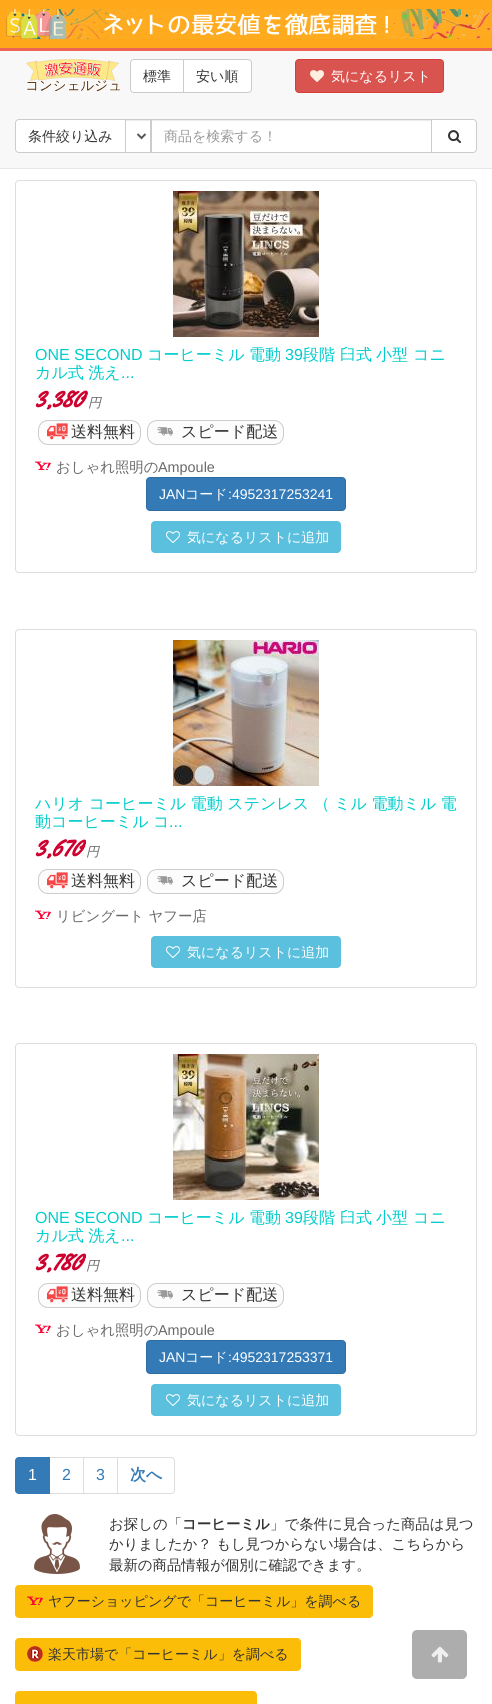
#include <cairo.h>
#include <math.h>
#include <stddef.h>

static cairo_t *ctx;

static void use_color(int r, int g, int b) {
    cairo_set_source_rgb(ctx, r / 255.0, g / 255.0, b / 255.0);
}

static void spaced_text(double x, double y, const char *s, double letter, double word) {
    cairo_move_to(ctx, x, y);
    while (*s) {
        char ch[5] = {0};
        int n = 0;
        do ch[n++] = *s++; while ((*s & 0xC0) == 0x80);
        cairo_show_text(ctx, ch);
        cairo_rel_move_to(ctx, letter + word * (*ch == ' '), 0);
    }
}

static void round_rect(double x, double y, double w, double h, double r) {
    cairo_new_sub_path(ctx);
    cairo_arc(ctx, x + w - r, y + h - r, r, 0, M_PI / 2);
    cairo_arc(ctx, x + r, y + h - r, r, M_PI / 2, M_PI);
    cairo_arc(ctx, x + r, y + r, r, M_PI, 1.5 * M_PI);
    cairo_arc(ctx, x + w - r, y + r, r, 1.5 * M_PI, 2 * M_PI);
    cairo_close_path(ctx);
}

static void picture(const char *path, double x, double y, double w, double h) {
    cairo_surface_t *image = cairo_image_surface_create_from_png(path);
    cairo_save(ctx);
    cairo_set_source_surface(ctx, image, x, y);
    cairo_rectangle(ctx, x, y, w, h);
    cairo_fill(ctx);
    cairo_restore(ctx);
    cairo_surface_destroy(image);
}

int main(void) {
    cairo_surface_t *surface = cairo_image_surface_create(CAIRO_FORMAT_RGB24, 492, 1704);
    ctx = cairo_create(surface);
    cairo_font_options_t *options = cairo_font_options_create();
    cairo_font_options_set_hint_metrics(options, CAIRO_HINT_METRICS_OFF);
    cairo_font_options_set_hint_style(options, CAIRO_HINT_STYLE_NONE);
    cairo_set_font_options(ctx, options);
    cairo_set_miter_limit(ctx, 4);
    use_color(255, 255, 255);
    cairo_paint(ctx);
    use_color(248, 248, 248);
    cairo_rectangle(ctx, 0, 51, 492, 117);
    cairo_fill(ctx);
    use_color(231, 231, 231);
    cairo_rectangle(ctx, 0, 168, 492, 1);
    cairo_fill(ctx);
    use_color(255, 169, 26);
    cairo_rectangle(ctx, 0, 0, 492, 48);
    cairo_fill(ctx);
    picture("img1.png", 5, 9, 487, 30);
    use_color(238, 101, 87);
    cairo_rectangle(ctx, 0, 48, 492, 3);
    cairo_fill(ctx);
    picture("img2.png", 26, 59, 94, 33);
    use_color(255, 255, 255);
    cairo_new_path(ctx);
    cairo_move_to(ctx, 134, 59.5);
    cairo_line_to(ctx, 183.5, 59.5);
    cairo_line_to(ctx, 183.5, 92.5);
    cairo_line_to(ctx, 134, 92.5);
    cairo_curve_to(ctx, 132, 92.5, 130.5, 91, 130.5, 89);
    cairo_line_to(ctx, 130.5, 63);
    cairo_curve_to(ctx, 130.5, 61, 132, 59.5, 134, 59.5);
    cairo_close_path(ctx);
    cairo_fill_preserve(ctx);
    use_color(204, 204, 204);
    cairo_set_line_width(ctx, 1);
    cairo_stroke(ctx);
    cairo_select_font_face(ctx, "WenQuanYi Zen Hei Medium", CAIRO_FONT_SLANT_NORMAL, CAIRO_FONT_WEIGHT_NORMAL);
    cairo_set_font_size(ctx, 14);
    use_color(51, 51, 51);
    cairo_move_to(ctx, 143, 81);
    cairo_show_text(ctx, "標準");
    use_color(255, 255, 255);
    cairo_new_path(ctx);
    cairo_move_to(ctx, 183.5, 59.5);
    cairo_line_to(ctx, 248, 59.5);
    cairo_curve_to(ctx, 250, 59.5, 251.5, 61, 251.5, 63);
    cairo_line_to(ctx, 251.5, 89);
    cairo_curve_to(ctx, 251.5, 91, 250, 92.5, 248, 92.5);
    cairo_line_to(ctx, 183.5, 92.5);
    cairo_close_path(ctx);
    cairo_fill_preserve(ctx);
    use_color(204, 204, 204);
    cairo_stroke(ctx);
    use_color(51, 51, 51);
    cairo_move_to(ctx, 196, 81);
    cairo_show_text(ctx, "安い順");
    use_color(217, 83, 79);
    round_rect(295.5, 59.5, 148, 33, 3.5);
    cairo_fill_preserve(ctx);
    use_color(212, 63, 58);
    cairo_stroke(ctx);
    picture("img3.png", 310, 70, 14, 12);
    use_color(255, 255, 255);
    cairo_move_to(ctx, 331, 81);
    cairo_show_text(ctx, "気になるリスト");
    cairo_new_path(ctx);
    cairo_move_to(ctx, 19, 119.5);
    cairo_line_to(ctx, 125.5, 119.5);
    cairo_line_to(ctx, 125.5, 152.5);
    cairo_line_to(ctx, 19, 152.5);
    cairo_curve_to(ctx, 17, 152.5, 15.5, 151, 15.5, 149);
    cairo_line_to(ctx, 15.5, 123);
    cairo_curve_to(ctx, 15.5, 121, 17, 119.5, 19, 119.5);
    cairo_close_path(ctx);
    cairo_fill_preserve(ctx);
    use_color(204, 204, 204);
    cairo_stroke(ctx);
    use_color(51, 51, 51);
    cairo_move_to(ctx, 28, 141);
    cairo_show_text(ctx, "条件絞り込み");
    use_color(255, 255, 255);
    cairo_rectangle(ctx, 126, 121, 24, 31);
    cairo_fill(ctx);
    use_color(236, 236, 236);
    cairo_rectangle(ctx, 126, 120, 24, 1);
    cairo_fill(ctx);
    cairo_rectangle(ctx, 125.5, 119.5, 25, 33);
    use_color(204, 204, 204);
    cairo_stroke(ctx);
    cairo_new_path(ctx);
    cairo_move_to(ctx, 137.5, 134);
    cairo_line_to(ctx, 141.5, 138);
    cairo_line_to(ctx, 145.5, 134);
    use_color(85, 85, 85);
    cairo_set_line_width(ctx, 2);
    cairo_stroke(ctx);
    use_color(255, 255, 255);
    cairo_rectangle(ctx, 152, 121, 279, 31);
    cairo_fill(ctx);
    use_color(236, 236, 236);
    cairo_rectangle(ctx, 152, 120, 279, 1);
    cairo_fill(ctx);
    cairo_rectangle(ctx, 151.5, 119.5, 280, 33);
    use_color(204, 204, 204);
    cairo_set_line_width(ctx, 1);
    cairo_stroke(ctx);
    use_color(153, 153, 153);
    cairo_move_to(ctx, 164, 141);
    cairo_show_text(ctx, "商品を検索する！");
    use_color(255, 255, 255);
    cairo_new_path(ctx);
    cairo_move_to(ctx, 431.5, 119.5);
    cairo_line_to(ctx, 473, 119.5);
    cairo_curve_to(ctx, 475, 119.5, 476.5, 121, 476.5, 123);
    cairo_line_to(ctx, 476.5, 149);
    cairo_curve_to(ctx, 476.5, 151, 475, 152.5, 473, 152.5);
    cairo_line_to(ctx, 431.5, 152.5);
    cairo_close_path(ctx);
    cairo_fill_preserve(ctx);
    use_color(204, 204, 204);
    cairo_stroke(ctx);
    picture("img4.png", 448, 130, 13, 14);
    round_rect(15.5, 180.5, 461, 392, 3.5);
    use_color(221, 221, 221);
    cairo_stroke(ctx);
    picture("img5.png", 173, 191, 146, 146);
    cairo_select_font_face(ctx, "Liberation Sans", CAIRO_FONT_SLANT_NORMAL, CAIRO_FONT_WEIGHT_NORMAL);
    cairo_set_font_size(ctx, 16);
    use_color(0, 204, 204);
    cairo_move_to(ctx, 35, 360);
    cairo_show_text(ctx, "ONE SECOND");
    cairo_select_font_face(ctx, "WenQuanYi Zen Hei Medium", CAIRO_FONT_SLANT_NORMAL, CAIRO_FONT_WEIGHT_NORMAL);
    cairo_move_to(ctx, 147, 360);
    cairo_show_text(ctx, "コーヒーミル");
    cairo_move_to(ctx, 249, 360);
    cairo_show_text(ctx, "電動");
    cairo_select_font_face(ctx, "Liberation Sans", CAIRO_FONT_SLANT_NORMAL, CAIRO_FONT_WEIGHT_NORMAL);
    cairo_move_to(ctx, 285, 360);
    cairo_show_text(ctx, "39");
    cairo_select_font_face(ctx, "WenQuanYi Zen Hei Medium", CAIRO_FONT_SLANT_NORMAL, CAIRO_FONT_WEIGHT_NORMAL);
    cairo_move_to(ctx, 303, 360);
    cairo_show_text(ctx, "段階");
    cairo_move_to(ctx, 340, 360);
    cairo_show_text(ctx, "臼式");
    cairo_move_to(ctx, 376, 360);
    cairo_show_text(ctx, "小型");
    cairo_move_to(ctx, 413, 360);
    cairo_show_text(ctx, "コニ");
    spaced_text(35, 378, "カル式 洗え", 0, -0.25);
    cairo_select_font_face(ctx, "Liberation Sans", CAIRO_FONT_SLANT_NORMAL, CAIRO_FONT_WEIGHT_NORMAL);
    cairo_move_to(ctx, 121, 378);
    cairo_show_text(ctx, "...");
    cairo_select_font_face(ctx, "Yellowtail", CAIRO_FONT_SLANT_NORMAL, CAIRO_FONT_WEIGHT_BOLD);
    cairo_set_font_size(ctx, 26);
    use_color(206, 0, 46);
    cairo_move_to(ctx, 35, 407);
    cairo_show_text(ctx, "3,380");
    cairo_select_font_face(ctx, "WenQuanYi Zen Hei Medium", CAIRO_FONT_SLANT_ITALIC, CAIRO_FONT_WEIGHT_NORMAL);
    cairo_set_font_size(ctx, 13);
    use_color(105, 105, 105);
    cairo_move_to(ctx, 88, 407);
    cairo_show_text(ctx, "円");
    use_color(252, 252, 252);
    round_rect(38.5, 420.5, 102, 24, 9.5);
    cairo_fill_preserve(ctx);
    use_color(204, 204, 204);
    cairo_stroke(ctx);
    picture("img6.png", 47, 423, 21, 17);
    cairo_select_font_face(ctx, "WenQuanYi Zen Hei Medium", CAIRO_FONT_SLANT_NORMAL, CAIRO_FONT_WEIGHT_NORMAL);
    cairo_set_font_size(ctx, 16);
    use_color(51, 51, 51);
    cairo_move_to(ctx, 71, 437);
    cairo_show_text(ctx, "送料無料");
    use_color(252, 252, 252);
    round_rect(147.5, 420.5, 136, 24, 9.5);
    cairo_fill_preserve(ctx);
    use_color(204, 204, 204);
    cairo_stroke(ctx);
    picture("img7.png", 157, 427, 16, 9);
    use_color(51, 51, 51);
    cairo_move_to(ctx, 181, 437);
    cairo_show_text(ctx, "スピード配送");
    picture("img8.png", 35, 461, 16, 9);
    cairo_set_font_size(ctx, 14.4);
    use_color(105, 105, 105);
    cairo_move_to(ctx, 56, 472);
    cairo_show_text(ctx, "おしゃれ照明の");
    cairo_select_font_face(ctx, "Liberation Sans", CAIRO_FONT_SLANT_NORMAL, CAIRO_FONT_WEIGHT_NORMAL);
    cairo_move_to(ctx, 158, 472);
    cairo_show_text(ctx, "Ampoule");
    use_color(51, 122, 183);
    round_rect(146.5, 477.5, 199, 33, 3.5);
    cairo_fill_preserve(ctx);
    use_color(46, 109, 164);
    cairo_stroke(ctx);
    cairo_set_font_size(ctx, 14);
    use_color(255, 255, 255);
    cairo_move_to(ctx, 159, 499);
    cairo_show_text(ctx, "JAN");
    cairo_select_font_face(ctx, "WenQuanYi Zen Hei Medium", CAIRO_FONT_SLANT_NORMAL, CAIRO_FONT_WEIGHT_NORMAL);
    cairo_move_to(ctx, 185, 499);
    cairo_show_text(ctx, "コード");
    cairo_select_font_face(ctx, "Liberation Sans", CAIRO_FONT_SLANT_NORMAL, CAIRO_FONT_WEIGHT_NORMAL);
    cairo_move_to(ctx, 228, 499);
    cairo_show_text(ctx, ":4952317253241");
    use_color(91, 192, 222);
    round_rect(151, 521, 190, 32, 4);
    cairo_fill(ctx);
    picture("img9.png", 166, 531, 14, 12);
    cairo_select_font_face(ctx, "WenQuanYi Zen Hei Medium", CAIRO_FONT_SLANT_NORMAL, CAIRO_FONT_WEIGHT_NORMAL);
    use_color(255, 255, 255);
    cairo_move_to(ctx, 187, 542);
    cairo_show_text(ctx, "気になるリストに追加");
    round_rect(15.5, 629.5, 461, 358, 3.5);
    use_color(221, 221, 221);
    cairo_stroke(ctx);
    picture("img10.png", 173, 640, 146, 146);
    cairo_set_font_size(ctx, 16);
    use_color(0, 204, 204);
    spaced_text(35, 809, "ハリオ コーヒーミル 電動 ステンレス （ ミル 電動ミル 電", 0, -0.25);
    spaced_text(35, 827, "動コーヒーミル コ", 0, -0.25);
    cairo_select_font_face(ctx, "Liberation Sans", CAIRO_FONT_SLANT_NORMAL, CAIRO_FONT_WEIGHT_NORMAL);
    cairo_move_to(ctx, 169, 827);
    cairo_show_text(ctx, "...");
    cairo_select_font_face(ctx, "Yellowtail", CAIRO_FONT_SLANT_NORMAL, CAIRO_FONT_WEIGHT_BOLD);
    cairo_set_font_size(ctx, 26);
    use_color(206, 0, 46);
    cairo_move_to(ctx, 35, 856);
    cairo_show_text(ctx, "3,670");
    cairo_select_font_face(ctx, "WenQuanYi Zen Hei Medium", CAIRO_FONT_SLANT_ITALIC, CAIRO_FONT_WEIGHT_NORMAL);
    cairo_set_font_size(ctx, 13);
    use_color(105, 105, 105);
    cairo_move_to(ctx, 86, 856);
    cairo_show_text(ctx, "円");
    use_color(252, 252, 252);
    round_rect(38.5, 869.5, 102, 24, 9.5);
    cairo_fill_preserve(ctx);
    use_color(204, 204, 204);
    cairo_stroke(ctx);
    picture("img6.png", 47, 872, 21, 17);
    cairo_select_font_face(ctx, "WenQuanYi Zen Hei Medium", CAIRO_FONT_SLANT_NORMAL, CAIRO_FONT_WEIGHT_NORMAL);
    cairo_set_font_size(ctx, 16);
    use_color(51, 51, 51);
    cairo_move_to(ctx, 71, 886);
    cairo_show_text(ctx, "送料無料");
    use_color(252, 252, 252);
    round_rect(147.5, 869.5, 136, 24, 9.5);
    cairo_fill_preserve(ctx);
    use_color(204, 204, 204);
    cairo_stroke(ctx);
    picture("img7.png", 157, 876, 16, 9);
    use_color(51, 51, 51);
    cairo_move_to(ctx, 181, 886);
    cairo_show_text(ctx, "スピード配送");
    picture("img8.png", 35, 910, 16, 9);
    cairo_set_font_size(ctx, 14.4);
    use_color(105, 105, 105);
    cairo_move_to(ctx, 56, 921);
    cairo_show_text(ctx, "リビングート ヤフー店");
    use_color(91, 192, 222);
    round_rect(151, 936, 190, 32, 4);
    cairo_fill(ctx);
    picture("img9.png", 166, 946, 14, 12);
    cairo_set_font_size(ctx, 14);
    use_color(255, 255, 255);
    cairo_move_to(ctx, 187, 957);
    cairo_show_text(ctx, "気になるリストに追加");
    round_rect(15.5, 1043.5, 461, 392, 3.5);
    use_color(221, 221, 221);
    cairo_stroke(ctx);
    picture("img11.png", 173, 1054, 146, 146);
    cairo_select_font_face(ctx, "Liberation Sans", CAIRO_FONT_SLANT_NORMAL, CAIRO_FONT_WEIGHT_NORMAL);
    cairo_set_font_size(ctx, 16);
    use_color(0, 204, 204);
    cairo_move_to(ctx, 35, 1223);
    cairo_show_text(ctx, "ONE SECOND");
    cairo_select_font_face(ctx, "WenQuanYi Zen Hei Medium", CAIRO_FONT_SLANT_NORMAL, CAIRO_FONT_WEIGHT_NORMAL);
    cairo_move_to(ctx, 147, 1223);
    cairo_show_text(ctx, "コーヒーミル");
    cairo_move_to(ctx, 249, 1223);
    cairo_show_text(ctx, "電動");
    cairo_select_font_face(ctx, "Liberation Sans", CAIRO_FONT_SLANT_NORMAL, CAIRO_FONT_WEIGHT_NORMAL);
    cairo_move_to(ctx, 285, 1223);
    cairo_show_text(ctx, "39");
    cairo_select_font_face(ctx, "WenQuanYi Zen Hei Medium", CAIRO_FONT_SLANT_NORMAL, CAIRO_FONT_WEIGHT_NORMAL);
    cairo_move_to(ctx, 303, 1223);
    cairo_show_text(ctx, "段階");
    cairo_move_to(ctx, 340, 1223);
    cairo_show_text(ctx, "臼式");
    cairo_move_to(ctx, 376, 1223);
    cairo_show_text(ctx, "小型");
    cairo_move_to(ctx, 413, 1223);
    cairo_show_text(ctx, "コニ");
    spaced_text(35, 1241, "カル式 洗え", 0, -0.25);
    cairo_select_font_face(ctx, "Liberation Sans", CAIRO_FONT_SLANT_NORMAL, CAIRO_FONT_WEIGHT_NORMAL);
    cairo_move_to(ctx, 121, 1241);
    cairo_show_text(ctx, "...");
    cairo_select_font_face(ctx, "Yellowtail", CAIRO_FONT_SLANT_NORMAL, CAIRO_FONT_WEIGHT_BOLD);
    cairo_set_font_size(ctx, 26);
    use_color(206, 0, 46);
    cairo_move_to(ctx, 35, 1270);
    cairo_show_text(ctx, "3,780");
    cairo_select_font_face(ctx, "WenQuanYi Zen Hei Medium", CAIRO_FONT_SLANT_ITALIC, CAIRO_FONT_WEIGHT_NORMAL);
    cairo_set_font_size(ctx, 13);
    use_color(105, 105, 105);
    cairo_move_to(ctx, 86, 1270);
    cairo_show_text(ctx, "円");
    use_color(252, 252, 252);
    round_rect(38.5, 1283.5, 102, 24, 9.5);
    cairo_fill_preserve(ctx);
    use_color(204, 204, 204);
    cairo_stroke(ctx);
    picture("img6.png", 47, 1286, 21, 17);
    cairo_select_font_face(ctx, "WenQuanYi Zen Hei Medium", CAIRO_FONT_SLANT_NORMAL, CAIRO_FONT_WEIGHT_NORMAL);
    cairo_set_font_size(ctx, 16);
    use_color(51, 51, 51);
    cairo_move_to(ctx, 71, 1300);
    cairo_show_text(ctx, "送料無料");
    use_color(252, 252, 252);
    round_rect(147.5, 1283.5, 136, 24, 9.5);
    cairo_fill_preserve(ctx);
    use_color(204, 204, 204);
    cairo_stroke(ctx);
    picture("img7.png", 157, 1290, 16, 9);
    use_color(51, 51, 51);
    cairo_move_to(ctx, 181, 1300);
    cairo_show_text(ctx, "スピード配送");
    picture("img8.png", 35, 1324, 16, 9);
    cairo_set_font_size(ctx, 14.4);
    use_color(105, 105, 105);
    cairo_move_to(ctx, 56, 1335);
    cairo_show_text(ctx, "おしゃれ照明の");
    cairo_select_font_face(ctx, "Liberation Sans", CAIRO_FONT_SLANT_NORMAL, CAIRO_FONT_WEIGHT_NORMAL);
    cairo_move_to(ctx, 158, 1335);
    cairo_show_text(ctx, "Ampoule");
    use_color(51, 122, 183);
    round_rect(146.5, 1340.5, 199, 33, 3.5);
    cairo_fill_preserve(ctx);
    use_color(46, 109, 164);
    cairo_stroke(ctx);
    cairo_set_font_size(ctx, 14);
    use_color(255, 255, 255);
    cairo_move_to(ctx, 159, 1362);
    cairo_show_text(ctx, "JAN");
    cairo_select_font_face(ctx, "WenQuanYi Zen Hei Medium", CAIRO_FONT_SLANT_NORMAL, CAIRO_FONT_WEIGHT_NORMAL);
    cairo_move_to(ctx, 185, 1362);
    cairo_show_text(ctx, "コード");
    cairo_select_font_face(ctx, "Liberation Sans", CAIRO_FONT_SLANT_NORMAL, CAIRO_FONT_WEIGHT_NORMAL);
    cairo_move_to(ctx, 228, 1362);
    cairo_show_text(ctx, ":4952317253371");
    use_color(91, 192, 222);
    round_rect(151, 1384, 190, 32, 4);
    cairo_fill(ctx);
    picture("img9.png", 166, 1394, 14, 12);
    cairo_select_font_face(ctx, "WenQuanYi Zen Hei Medium", CAIRO_FONT_SLANT_NORMAL, CAIRO_FONT_WEIGHT_NORMAL);
    use_color(255, 255, 255);
    cairo_move_to(ctx, 187, 1405);
    cairo_show_text(ctx, "気になるリストに追加");
    cairo_rectangle(ctx, 49.5, 1457.5, 34, 36);
    use_color(221, 221, 221);
    cairo_stroke(ctx);
    use_color(51, 122, 183);
    cairo_new_path(ctx);
    cairo_move_to(ctx, 19, 1457.5);
    cairo_line_to(ctx, 49.5, 1457.5);
    cairo_line_to(ctx, 49.5, 1493.5);
    cairo_line_to(ctx, 19, 1493.5);
    cairo_curve_to(ctx, 17, 1493.5, 15.5, 1492, 15.5, 1490);
    cairo_line_to(ctx, 15.5, 1461);
    cairo_curve_to(ctx, 15.5, 1459, 17, 1457.5, 19, 1457.5);
    cairo_close_path(ctx);
    cairo_fill_preserve(ctx);
    cairo_stroke(ctx);
    cairo_select_font_face(ctx, "Liberation Sans", CAIRO_FONT_SLANT_NORMAL, CAIRO_FONT_WEIGHT_NORMAL);
    cairo_set_font_size(ctx, 16);
    use_color(255, 255, 255);
    cairo_move_to(ctx, 28, 1480);
    cairo_show_text(ctx, "1");
    use_color(51, 122, 183);
    cairo_move_to(ctx, 62, 1480);
    cairo_show_text(ctx, "2");
    cairo_rectangle(ctx, 83.5, 1457.5, 34, 36);
    use_color(221, 221, 221);
    cairo_stroke(ctx);
    use_color(51, 122, 183);
    cairo_move_to(ctx, 96, 1480);
    cairo_show_text(ctx, "3");
    use_color(255, 255, 255);
    cairo_new_path(ctx);
    cairo_move_to(ctx, 117.5, 1457.5);
    cairo_line_to(ctx, 171, 1457.5);
    cairo_curve_to(ctx, 173, 1457.5, 174.5, 1459, 174.5, 1461);
    cairo_line_to(ctx, 174.5, 1490);
    cairo_curve_to(ctx, 174.5, 1492, 173, 1493.5, 171, 1493.5);
    cairo_line_to(ctx, 117.5, 1493.5);
    cairo_close_path(ctx);
    cairo_fill_preserve(ctx);
    use_color(221, 221, 221);
    cairo_stroke(ctx);
    cairo_select_font_face(ctx, "WenQuanYi Zen Hei", CAIRO_FONT_SLANT_NORMAL, CAIRO_FONT_WEIGHT_BOLD);
    use_color(51, 122, 183);
    cairo_move_to(ctx, 130, 1480);
    cairo_show_text(ctx, "次へ");
    picture("img12.png", 34, 1514, 46, 60);
    cairo_select_font_face(ctx, "WenQuanYi Zen Hei Medium", CAIRO_FONT_SLANT_NORMAL, CAIRO_FONT_WEIGHT_NORMAL);
    cairo_set_font_size(ctx, 14.4);
    use_color(51, 51, 51);
    cairo_move_to(ctx, 109, 1529);
    cairo_show_text(ctx, "お探しの「");
    cairo_select_font_face(ctx, "WenQuanYi Zen Hei", CAIRO_FONT_SLANT_NORMAL, CAIRO_FONT_WEIGHT_BOLD);
    cairo_move_to(ctx, 182, 1529);
    cairo_show_text(ctx, "コーヒーミル");
    cairo_select_font_face(ctx, "WenQuanYi Zen Hei Medium", CAIRO_FONT_SLANT_NORMAL, CAIRO_FONT_WEIGHT_NORMAL);
    cairo_move_to(ctx, 270, 1529);
    cairo_show_text(ctx, "」で条件に見合った商品は見つ");
    cairo_move_to(ctx, 109, 1549);
    cairo_show_text(ctx, "かりましたか？ もし見つからない場合は、こちらから");
    cairo_move_to(ctx, 109, 1570);
    cairo_show_text(ctx, "最新の商品情報が個別に確認できます。");
    use_color(251, 189, 7);
    round_rect(15, 1585, 358, 33, 4);
    cairo_fill(ctx);
    picture("img13.png", 27, 1596, 16, 9);
    cairo_set_font_size(ctx, 14);
    use_color(51, 51, 51);
    cairo_move_to(ctx, 48, 1606);
    cairo_show_text(ctx, "ヤフーショッピングで「コーヒーミル」を調べる");
    use_color(251, 189, 7);
    round_rect(15, 1638, 286, 33, 4);
    cairo_fill(ctx);
    picture("img14.png", 27, 1646, 16, 16);
    use_color(51, 51, 51);
    cairo_move_to(ctx, 48, 1659);
    cairo_show_text(ctx, "楽天市場で「コーヒーミル」を調べる");
    use_color(251, 189, 7);
    round_rect(15, 1691, 242, 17, 4);
    cairo_fill(ctx);
    use_color(173, 173, 173);
    round_rect(412, 1630, 55, 49, 5);
    cairo_fill(ctx);
    picture("img15.png", 431, 1646, 18, 17);
    cairo_surface_write_to_png(surface, "result.png");
    cairo_font_options_destroy(options);
    cairo_destroy(ctx);
    cairo_surface_destroy(surface);
    return 0;
}
